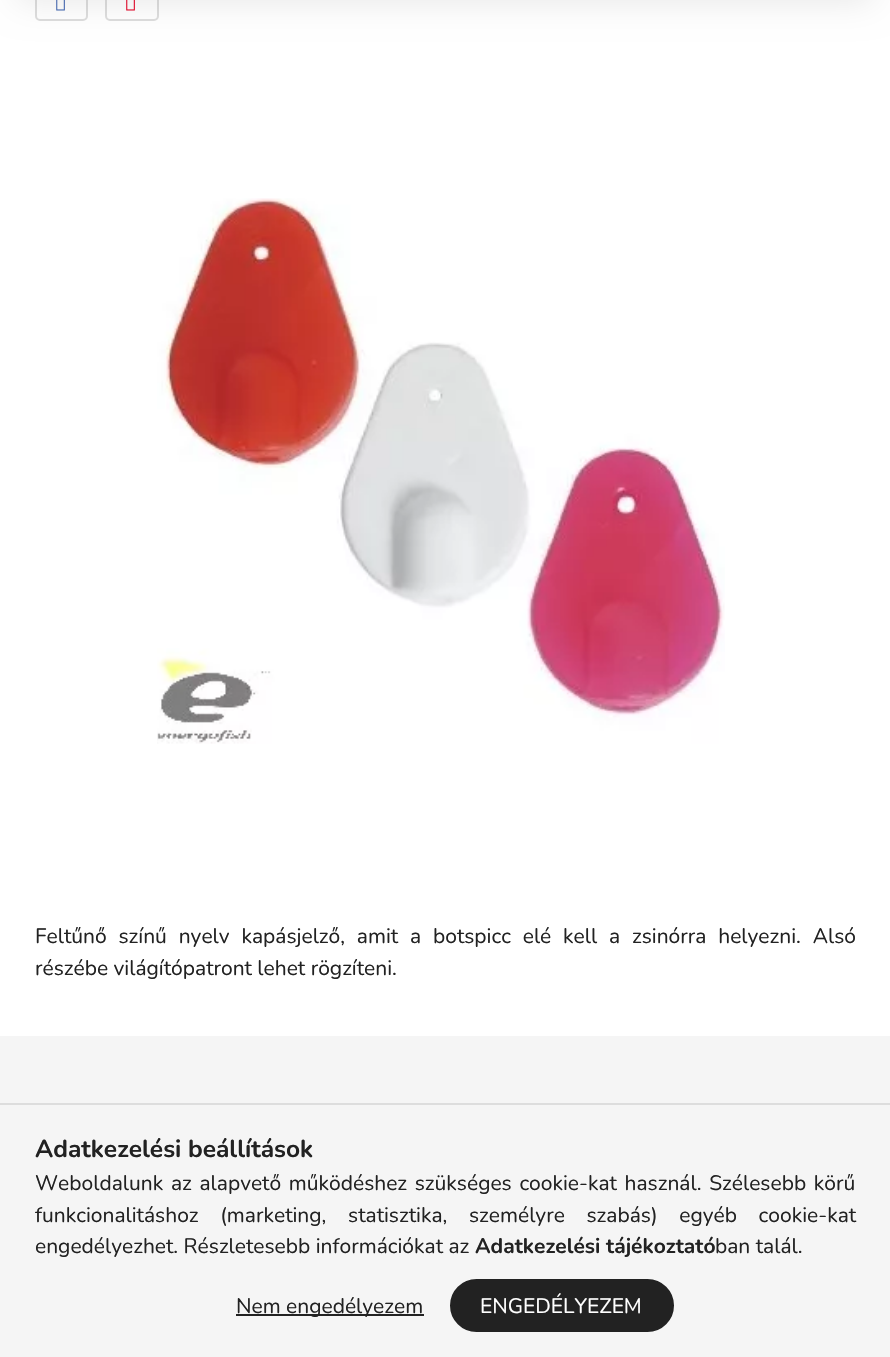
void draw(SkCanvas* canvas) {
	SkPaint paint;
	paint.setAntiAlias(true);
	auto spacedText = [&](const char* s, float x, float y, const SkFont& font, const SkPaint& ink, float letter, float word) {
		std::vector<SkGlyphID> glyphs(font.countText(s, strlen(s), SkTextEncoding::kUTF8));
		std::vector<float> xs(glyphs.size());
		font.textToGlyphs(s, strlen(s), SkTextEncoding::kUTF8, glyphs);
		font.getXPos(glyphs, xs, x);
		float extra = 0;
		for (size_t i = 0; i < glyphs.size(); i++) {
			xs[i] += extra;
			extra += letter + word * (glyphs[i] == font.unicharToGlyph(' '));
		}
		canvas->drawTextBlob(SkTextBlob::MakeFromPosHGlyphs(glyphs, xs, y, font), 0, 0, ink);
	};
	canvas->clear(0xffffffff);
	paint.setStroke(true);
	paint.setStrokeWidth(2);
	paint.setColor(0xffdddddd);
	canvas->drawRoundRect(SkRect::MakeXYWH(36, -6, 51, 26), 4, 4, paint);
	canvas->drawImageRect(SkImages::DeferredFromEncodedData(SkData::MakeFromFileName("img1.png")), SkRect::MakeXYWH(56, 0, 9, 11), SkSamplingOptions());
	canvas->drawRoundRect(SkRect::MakeXYWH(106, -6, 52, 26), 4, 4, paint);
	canvas->drawImageRect(SkImages::DeferredFromEncodedData(SkData::MakeFromFileName("img2.png")), SkRect::MakeXYWH(126, 0, 9, 11), SkSamplingOptions());
	paint.setStroke(false);
	paint.setColor(0x1a000000);
	paint.setMaskFilter(SkMaskFilter::MakeBlur(kNormal_SkBlurStyle, 17.5));
	canvas->drawRect(SkRect::MakeXYWH(18, -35, 855, 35), paint);
	paint.setMaskFilter(nullptr);
	canvas->drawImageRect(SkImages::DeferredFromEncodedData(SkData::MakeFromFileName("img3.png")), SkRect::MakeXYWH(157, 198, 568, 546), SkSamplingOptions());
	SkFont f1(fontMgr->matchFamilyStyle("Nunito", SkFontStyle::Normal()), 21);
	f1.setSubpixel(true);
	paint.setColor(0xff222222);
	spacedText("Feltűnő színű nyelv kapásjelző, amit a botspicc elé kell a zsinórra helyezni. Alsó", 35, 943, f1, paint, 0, 6.4);
	canvas->drawString("részébe világítópatront lehet rögzíteni.", 35, 975, f1, paint);
	paint.setColor(0xfff5f5f5);
	canvas->drawRect(SkRect::MakeXYWH(0, 1036, 890, 67), paint);
	canvas->drawRect(SkRect::MakeXYWH(0, 1105, 890, 252), paint);
	paint.setColor(0xffdddddd);
	canvas->drawRect(SkRect::MakeXYWH(0, 1103, 890, 2), paint);
	SkFont f2(fontMgr->matchFamilyStyle("Nunito", SkFontStyle::Bold()), 24.5);
	f2.setSubpixel(true);
	paint.setColor(0xff222222);
	canvas->drawString("Adatkezelési beállítások", 35, 1157, f2, paint);
	spacedText("Weboldalunk az alapvető működéshez szükséges cookie-kat használ. Szélesebb körű", 35, 1190, f1, paint, 0, 2.25);
	spacedText("funkcionalitáshoz (marketing, statisztika, személyre szabás) egyéb cookie-kat", 35, 1222, f1, paint, 0, 16.25);
	canvas->drawString("engedélyezhet. Részletesebb információkat az", 35, 1253, f1, paint);
	SkFont f3(fontMgr->matchFamilyStyle("Nunito", SkFontStyle::Bold()), 21);
	f3.setSubpixel(true);
	canvas->drawString("Adatkezelési tájékoztató", 475, 1253, f3, paint);
	canvas->drawString("ban talál.", 715, 1253, f1, paint);
	canvas->drawRect(SkRect::MakeXYWH(236, 1314, 188, 2), paint);
	canvas->drawString("Nem engedélyezem", 236, 1313, f1, paint);
	canvas->drawRoundRect(SkRect::MakeXYWH(451, 1280, 222, 51), 25.5, 25.5, paint);
	paint.setStroke(true);
	canvas->drawRoundRect(SkRect::MakeXYWH(451, 1280, 222, 51), 25.5, 25.5, paint);
	paint.setStroke(false);
	paint.setColor(0xffffffff);
	canvas->drawString("ENGEDÉLYEZEM", 480, 1313, f1, paint);
}
